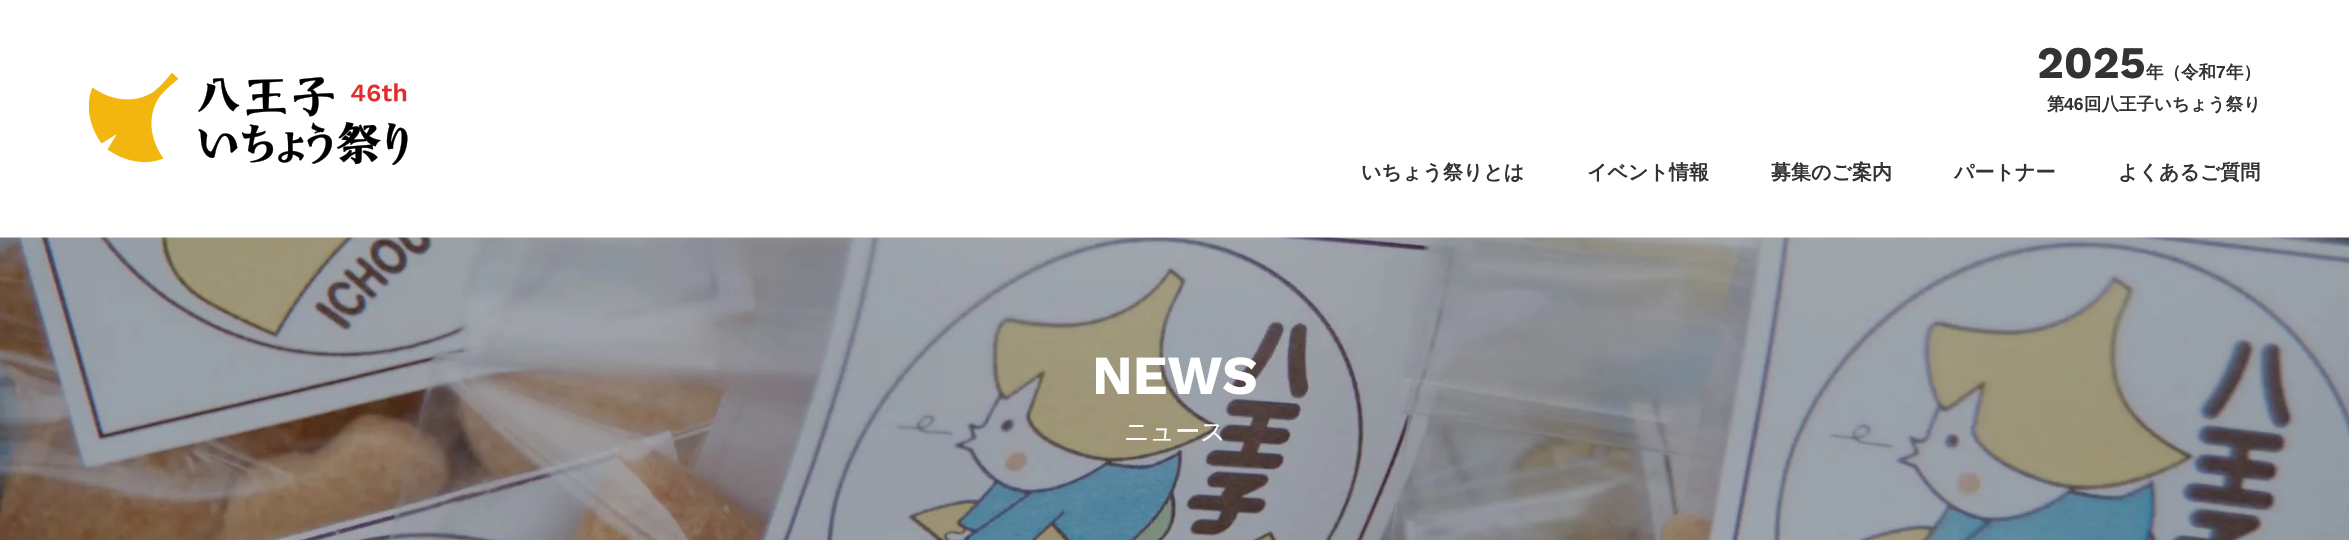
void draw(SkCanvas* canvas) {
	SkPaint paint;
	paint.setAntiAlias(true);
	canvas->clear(0xffffffff);
	canvas->drawImageRect(SkImages::DeferredFromEncodedData(SkData::MakeFromFileName("img1.png")), SkRect::MakeXYWH(89, 73, 319, 92), SkSamplingOptions());
	SkFont f1(fontMgr->matchFamilyStyle("Work Sans", SkFontStyle::Bold()), 45);
	f1.setSubpixel(true);
	paint.setColor(0xff333333);
	canvas->drawString("2025", 2037, 78, f1, paint);
	SkFont f2(fontMgr->matchFamilyStyle("WenQuanYi Zen Hei", SkFontStyle::Bold()), 17.5);
	f2.setSubpixel(true);
	canvas->drawString("年（令和", 2146, 78, f2, paint);
	SkFont f3(fontMgr->matchFamilyStyle("Liberation Sans", SkFontStyle::Bold()), 17.5);
	f3.setSubpixel(true);
	canvas->drawString("7", 2216, 78, f3, paint);
	canvas->drawString("年）", 2226, 78, f2, paint);
	canvas->drawString("第", 2047, 110, f2, paint);
	canvas->drawString("46", 2064, 110, f3, paint);
	canvas->drawString("回八王子いちょう祭り", 2084, 110, f2, paint);
	SkFont f4(fontMgr->matchFamilyStyle("WenQuanYi Zen Hei", SkFontStyle::Bold()), 20);
	f4.setSubpixel(true);
	canvas->drawString("いちょう祭りとは", 1361, 179, f4, paint);
	canvas->drawString("イベント情報", 1587, 179, f4, paint);
	canvas->drawString("募集のご案内", 1771, 179, f4, paint);
	canvas->drawString("パートナー", 1954, 179, f4, paint);
	canvas->drawString("よくあるご質問", 2118, 179, f4, paint);
	canvas->drawImageRect(SkImages::DeferredFromEncodedData(SkData::MakeFromFileName("img2.png")), SkRect::MakeXYWH(0, 237, 2349, 303), SkSamplingOptions());
	SkFont f5(fontMgr->matchFamilyStyle("Work Sans", SkFontStyle::Bold()), 55);
	f5.setSubpixel(true);
	paint.setColor(0xffffffff);
	canvas->drawString("NEWS", 1092, 394, f5, paint);
	SkFont f6(fontMgr->matchFamilyStyle("WenQuanYi Zen Hei", SkFontStyle(500, SkFontStyle::kNormal_Width, SkFontStyle::kUpright_Slant)), 25);
	f6.setSubpixel(true);
	canvas->drawString("ニュース", 1124, 440, f6, paint);
}
